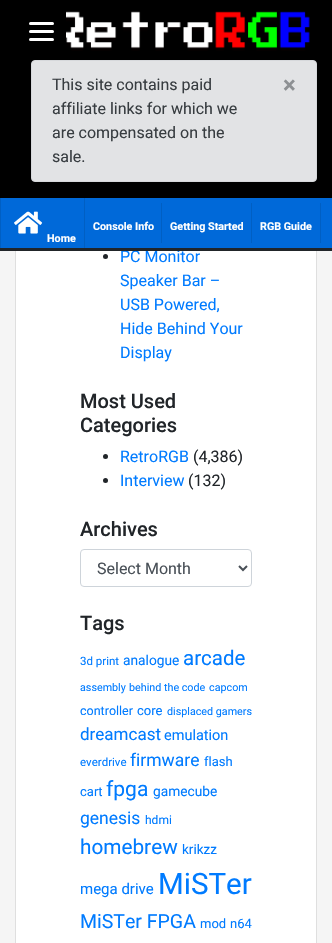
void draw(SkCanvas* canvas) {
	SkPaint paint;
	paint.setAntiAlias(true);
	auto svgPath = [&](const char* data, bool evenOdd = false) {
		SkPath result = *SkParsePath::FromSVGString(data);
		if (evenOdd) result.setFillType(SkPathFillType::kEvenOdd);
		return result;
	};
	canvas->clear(0xfff5f5f5);
	paint.setColor(0xffffffff);
	canvas->drawRect(SkRect::MakeXYWH(16, 251, 300, 692), paint);
	paint.setStroke(true);
	paint.setStrokeWidth(1);
	paint.setColor(0xffdfdfdf);
	canvas->drawRect(SkRect::MakeXYWH(15.5, -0.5, 301, 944), paint);
	paint.setStroke(false);
	paint.setColor(0xff000000);
	canvas->drawRect(SkRect::MakeXYWH(0, 0, 332, 198), paint);
	paint.setColor(0xffffffff);
	canvas->drawRoundRect(SkRect::MakeXYWH(29, 30, 25, 3), 1.5, 1.5, paint);
	canvas->drawRoundRect(SkRect::MakeXYWH(29, 22, 25, 3), 1.5, 1.5, paint);
	canvas->drawRoundRect(SkRect::MakeXYWH(29, 38, 25, 3), 1.5, 1.5, paint);
	SkFont f1(fontMgr->matchFamilyStyle("Roboto", SkFontStyle::Normal()), 16);
	f1.setSubpixel(true);
	paint.setColor(0xff007bff);
	canvas->drawString("PC Monitor", 120, 262, f1, paint);
	paint.setColor(0xff212529);
	canvas->drawRect(SkRect::MakeXYWH(0, 248, 332, 3), paint);
	canvas->drawImageRect(SkImages::DeferredFromEncodedData(SkData::MakeFromFileName("img1.png")), SkRect::MakeXYWH(66, 11, 244, 40), SkSamplingOptions());
	paint.setColor(0xffe2e3e5);
	canvas->drawRoundRect(SkRect::MakeXYWH(31.5, 60.5, 285, 121), 3.5, 3.5, paint);
	paint.setStroke(true);
	paint.setColor(0xffd6d8db);
	canvas->drawRoundRect(SkRect::MakeXYWH(31.5, 60.5, 285, 121), 3.5, 3.5, paint);
	paint.setStroke(false);
	paint.setColor(0xff383d41);
	canvas->drawString("This site contains paid", 52, 90, f1, paint);
	SkFont f2(fontMgr->matchFamilyStyle("Roboto", SkFontStyle::Bold()), 24);
	f2.setSubpixel(true);
	paint.setColor(0xff8d9093);
	canvas->drawString("×", 283, 93, f2, paint);
	paint.setColor(0xff383d41);
	canvas->drawString("affiliate links for which we", 52, 114, f1, paint);
	canvas->drawString("are compensated on the", 52, 138, f1, paint);
	canvas->drawString("sale.", 52, 162, f1, paint);
	paint.setColor(0xff0069d9);
	canvas->drawRect(SkRect::MakeXYWH(1, 198, 331, 50), paint);
	paint.setColor(0xff005fc3);
	canvas->drawRect(SkRect::MakeXYWH(0, 198, 1, 50), paint);
	canvas->drawRect(SkRect::MakeXYWH(161, 203, 1, 40), paint);
	SkFont f3(fontMgr->matchFamilyStyle("Roboto", SkFontStyle::Bold()), 10.75);
	f3.setSubpixel(true);
	paint.setColor(0xffffffff);
	canvas->drawString("Console Info", 93, 230, f3, paint);
	paint.setColor(0xff005fc3);
	canvas->drawRect(SkRect::MakeXYWH(251, 203, 1, 40), paint);
	paint.setColor(0xffffffff);
	canvas->drawString("Getting Started", 170, 230, f3, paint);
	paint.setColor(0xff005fc3);
	canvas->drawRect(SkRect::MakeXYWH(320, 203, 1, 40), paint);
	paint.setColor(0xffffffff);
	canvas->drawString("RGB Guide", 260, 230, f3, paint);
	paint.setColor(0xff005fc3);
	canvas->drawRect(SkRect::MakeXYWH(84, 198, 1, 50), paint);
	canvas->drawImageRect(SkImages::DeferredFromEncodedData(SkData::MakeFromFileName("img2.png")), SkRect::MakeXYWH(14, 211, 29, 23), SkSamplingOptions());
	paint.setColor(0xffffffff);
	canvas->drawString("Home", 47, 242, f3, paint);
	paint.setColor(0xff212529);
	canvas->drawCircle(105.5, 256.5, 2.5, paint);
	paint.setColor(0xff007bff);
	canvas->drawString("Speaker Bar –", 120, 286, f1, paint);
	canvas->drawString("USB Powered,", 120, 310, f1, paint);
	canvas->drawString("Hide Behind Your", 120, 334, f1, paint);
	canvas->drawString("Display", 120, 358, f1, paint);
	SkFont f4(fontMgr->matchFamilyStyle("Roboto", SkFontStyle(500, SkFontStyle::kNormal_Width, SkFontStyle::kUpright_Slant)), 20);
	f4.setSubpixel(true);
	paint.setColor(0xff212529);
	canvas->drawString("Most Used", 80, 408, f4, paint);
	canvas->drawString("Categories", 80, 432, f4, paint);
	canvas->drawCircle(105.5, 456.5, 2.5, paint);
	paint.setColor(0xff007bff);
	canvas->drawString("RetroRGB", 120, 462, f1, paint);
	paint.setColor(0xff212529);
	canvas->drawString("(4,386)", 193, 462, f1, paint);
	canvas->drawCircle(105.5, 480.5, 2.5, paint);
	paint.setColor(0xff007bff);
	canvas->drawString("Interview", 120, 486, f1, paint);
	paint.setColor(0xff212529);
	canvas->drawString("(132)", 188, 486, f1, paint);
	canvas->drawString("Archives", 80, 536, f4, paint);
	paint.setStroke(true);
	paint.setColor(0xffced4da);
	canvas->drawRoundRect(SkRect::MakeXYWH(80.5, 549.5, 171, 37), 3.5, 3.5, paint);
	paint.setStrokeWidth(2);
	paint.setColor(0xff495057);
	canvas->drawPath(svgPath("M239 566L243 570L247 566"), paint);
	paint.setStroke(false);
	canvas->drawString("Select Month", 97, 574, f1, paint);
	paint.setColor(0xff212529);
	canvas->drawString("Tags", 80, 630, f4, paint);
	SkFont f5(fontMgr->matchFamilyStyle("Roboto", SkFontStyle::Normal()), 11.5);
	f5.setSubpixel(true);
	paint.setColor(0xff007bff);
	canvas->drawString("3d print", 80, 665, f5, paint);
	SkFont f6(fontMgr->matchFamilyStyle("Roboto", SkFontStyle::Normal()), 13.75);
	f6.setSubpixel(true);
	canvas->drawString("analogue", 123, 665, f6, paint);
	SkFont f7(fontMgr->matchFamilyStyle("Roboto", SkFontStyle::Normal()), 20.5);
	f7.setSubpixel(true);
	canvas->drawString("arcade", 183, 665, f7, paint);
	SkFont f8(fontMgr->matchFamilyStyle("Roboto", SkFontStyle::Normal()), 10.75);
	f8.setSubpixel(true);
	canvas->drawString("assembly", 80, 691, f8, paint);
	canvas->drawString("behind the code", 129, 691, f8, paint);
	canvas->drawString("capcom", 209, 691, f8, paint);
	SkFont f9(fontMgr->matchFamilyStyle("Roboto", SkFontStyle::Normal()), 12.5);
	f9.setSubpixel(true);
	canvas->drawString("controller", 80, 715, f9, paint);
	SkFont f10(fontMgr->matchFamilyStyle("Roboto", SkFontStyle::Normal()), 13);
	f10.setSubpixel(true);
	canvas->drawString("core", 137, 715, f10, paint);
	canvas->drawString("displaced gamers", 167, 715, f8, paint);
	SkFont f11(fontMgr->matchFamilyStyle("Roboto", SkFontStyle::Normal()), 17);
	f11.setSubpixel(true);
	canvas->drawString("dreamcast", 80, 740, f11, paint);
	SkFont f12(fontMgr->matchFamilyStyle("Roboto", SkFontStyle::Normal()), 14.5);
	f12.setSubpixel(true);
	canvas->drawString("emulation", 164, 740, f12, paint);
	canvas->drawString("everdrive", 80, 766, f5, paint);
	SkFont f13(fontMgr->matchFamilyStyle("Roboto", SkFontStyle::Normal()), 17.5);
	f13.setSubpixel(true);
	canvas->drawString("firmware", 130, 766, f13, paint);
	canvas->drawString("flash", 204, 766, f10, paint);
	canvas->drawString("cart", 80, 796, f10, paint);
	SkFont f14(fontMgr->matchFamilyStyle("Roboto", SkFontStyle::Normal()), 21);
	f14.setSubpixel(true);
	canvas->drawString("fpga", 106, 796, f14, paint);
	canvas->drawString("gamecube", 153, 796, f6, paint);
	canvas->drawString("genesis", 80, 824, f13, paint);
	SkFont f15(fontMgr->matchFamilyStyle("Roboto", SkFontStyle::Normal()), 12);
	f15.setSubpixel(true);
	canvas->drawString("hdmi", 145, 824, f15, paint);
	SkFont f16(fontMgr->matchFamilyStyle("Roboto", SkFontStyle::Normal()), 20.75);
	f16.setSubpixel(true);
	canvas->drawString("homebrew", 80, 854, f16, paint);
	SkFont f17(fontMgr->matchFamilyStyle("Roboto", SkFontStyle::Normal()), 13.5);
	f17.setSubpixel(true);
	canvas->drawString("krikzz", 182, 854, f17, paint);
	SkFont f18(fontMgr->matchFamilyStyle("Roboto", SkFontStyle::Normal()), 15);
	f18.setSubpixel(true);
	canvas->drawString("mega drive", 80, 894, f18, paint);
	SkFont f19(fontMgr->matchFamilyStyle("Roboto", SkFontStyle::Normal()), 29.5);
	f19.setSubpixel(true);
	canvas->drawString("MiSTer", 158, 894, f19, paint);
	SkFont f20(fontMgr->matchFamilyStyle("Roboto", SkFontStyle::Normal()), 19.5);
	f20.setSubpixel(true);
	canvas->drawString("MiSTer FPGA", 80, 928, f20, paint);
	canvas->drawString("mod", 200, 928, f10, paint);
	canvas->drawString("n64", 230, 928, f10, paint);
}
